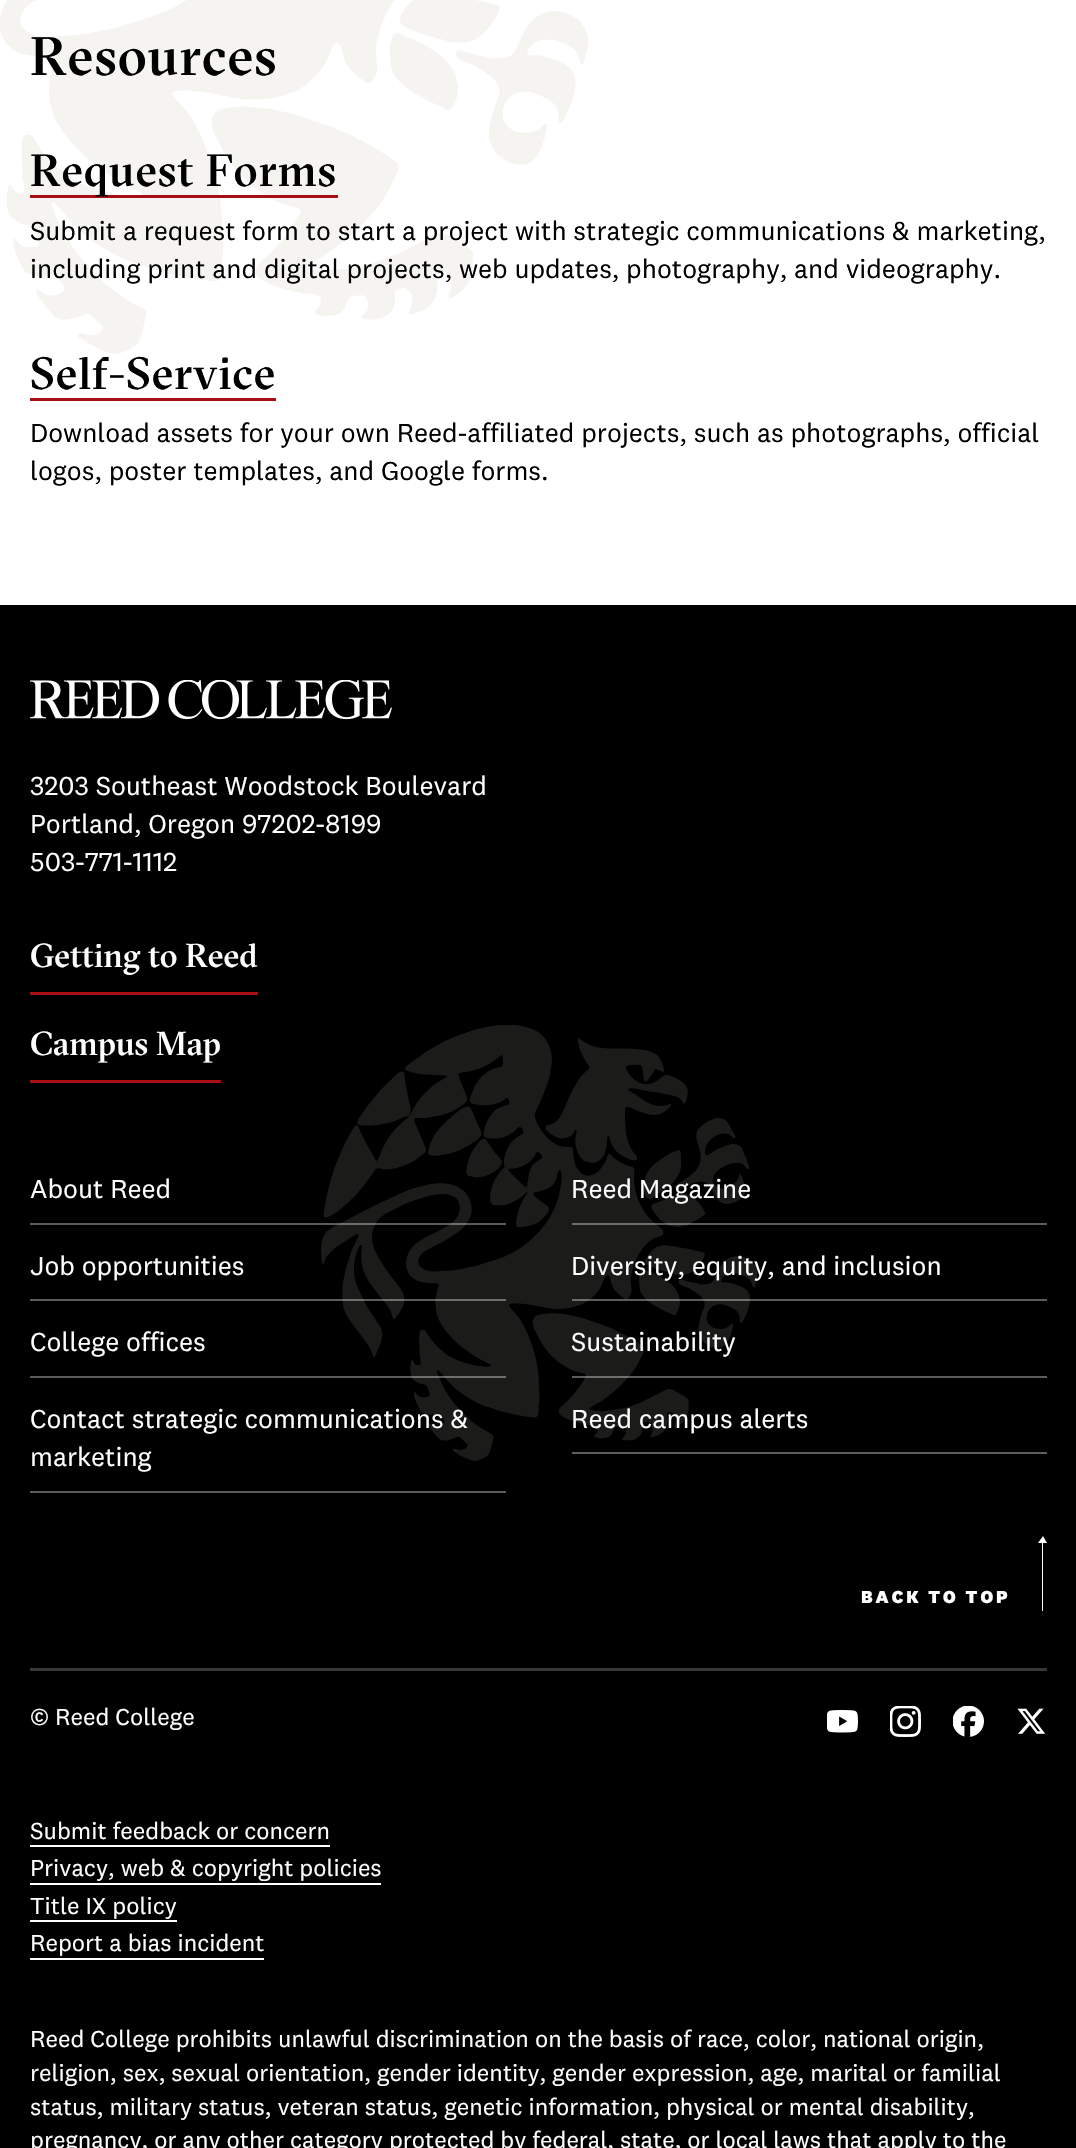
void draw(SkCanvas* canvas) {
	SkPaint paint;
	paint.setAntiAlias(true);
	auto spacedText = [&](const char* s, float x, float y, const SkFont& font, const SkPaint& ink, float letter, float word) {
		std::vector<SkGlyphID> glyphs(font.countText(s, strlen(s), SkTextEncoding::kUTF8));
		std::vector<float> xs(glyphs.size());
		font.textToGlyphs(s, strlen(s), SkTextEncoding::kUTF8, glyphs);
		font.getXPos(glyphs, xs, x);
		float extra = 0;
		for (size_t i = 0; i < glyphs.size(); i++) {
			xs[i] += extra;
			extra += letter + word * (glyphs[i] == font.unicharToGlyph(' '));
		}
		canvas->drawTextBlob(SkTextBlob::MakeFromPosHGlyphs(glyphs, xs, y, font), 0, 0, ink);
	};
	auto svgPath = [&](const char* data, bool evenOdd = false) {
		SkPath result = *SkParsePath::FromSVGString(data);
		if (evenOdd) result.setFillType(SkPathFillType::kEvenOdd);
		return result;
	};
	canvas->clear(0xffffffff);
	canvas->drawImageRect(SkImages::DeferredFromEncodedData(SkData::MakeFromFileName("img1.png")), SkRect::MakeXYWH(0, 0, 588, 354), SkSamplingOptions());
	SkFont f1(fontMgr->matchFamilyStyle("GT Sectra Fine", SkFontStyle(500, SkFontStyle::kNormal_Width, SkFontStyle::kUpright_Slant)), 54);
	f1.setSubpixel(true);
	paint.setColor(0xff000000);
	spacedText("Resources", 30, 75, f1, paint, 1, 0);
	paint.setColor(0xffa70e16);
	canvas->drawRect(SkRect::MakeXYWH(30, 195, 308, 3), paint);
	SkFont f2(fontMgr->matchFamilyStyle("GT Sectra Fine", SkFontStyle(500, SkFontStyle::kNormal_Width, SkFontStyle::kUpright_Slant)), 45);
	f2.setSubpixel(true);
	paint.setColor(0xff000000);
	spacedText("Request Forms", 30, 186, f2, paint, 0.9, 0);
	SkFont f3(fontMgr->matchFamilyStyle("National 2", SkFontStyle::Normal()), 27);
	f3.setSubpixel(true);
	canvas->drawString("Submit a request form to start a project with strategic communications & marketing,", 30, 240, f3, paint);
	canvas->drawString("including print and digital projects, web updates, photography, and videography.", 30, 278, f3, paint);
	spacedText("Self-Service", 30, 389, f2, paint, 0.9, 0);
	paint.setColor(0xffa70e16);
	canvas->drawRect(SkRect::MakeXYWH(30, 398, 246, 3), paint);
	paint.setColor(0xff000000);
	canvas->drawString("Download assets for your own Reed-affiliated projects, such as photographs, official", 30, 442, f3, paint);
	canvas->drawString("logos, poster templates, and Google forms.", 30, 480, f3, paint);
	canvas->drawRect(SkRect::MakeXYWH(0, 605, 1076, 1543), paint);
	canvas->drawImageRect(SkImages::DeferredFromEncodedData(SkData::MakeFromFileName("img2.png")), SkRect::MakeXYWH(30, 680, 362, 40), SkSamplingOptions());
	paint.setColor(0xffffffff);
	canvas->drawString("3203 Southeast Woodstock Boulevard", 30, 795, f3, paint);
	canvas->drawString("Portland, Oregon 97202-8199", 30, 833, f3, paint);
	canvas->drawString("503-771-1112", 30, 871, f3, paint);
	paint.setColor(0xffa70e16);
	canvas->drawRect(SkRect::MakeXYWH(30, 992, 228, 3), paint);
	SkFont f4(fontMgr->matchFamilyStyle("GT Sectra Fine", SkFontStyle(500, SkFontStyle::kNormal_Width, SkFontStyle::kUpright_Slant)), 33);
	f4.setSubpixel(true);
	paint.setColor(0xffffffff);
	canvas->drawString("Getting to Reed", 30, 967, f4, paint);
	paint.setColor(0xffa70e16);
	canvas->drawRect(SkRect::MakeXYWH(30, 1080, 191, 3), paint);
	paint.setColor(0xffffffff);
	canvas->drawString("Campus Map", 30, 1055, f4, paint);
	canvas->drawImageRect(SkImages::DeferredFromEncodedData(SkData::MakeFromFileName("img3.png")), SkRect::MakeXYWH(321, 1025, 437, 436), SkSamplingOptions());
	paint.setColor(0x5cffffff);
	canvas->drawRect(SkRect::MakeXYWH(30, 1223, 476, 2), paint);
	paint.setColor(0xffffffff);
	canvas->drawString("About Reed", 30, 1198, f3, paint);
	paint.setColor(0x5cffffff);
	canvas->drawRect(SkRect::MakeXYWH(572, 1223, 475, 2), paint);
	paint.setColor(0xffffffff);
	canvas->drawString("Reed Magazine", 571, 1198, f3, paint);
	paint.setColor(0x5cffffff);
	canvas->drawRect(SkRect::MakeXYWH(30, 1299, 476, 2), paint);
	paint.setColor(0xffffffff);
	canvas->drawString("Job opportunities", 30, 1275, f3, paint);
	paint.setColor(0x5cffffff);
	canvas->drawRect(SkRect::MakeXYWH(572, 1299, 475, 2), paint);
	paint.setColor(0xffffffff);
	canvas->drawString("Diversity, equity, and inclusion", 571, 1275, f3, paint);
	paint.setColor(0x5cffffff);
	canvas->drawRect(SkRect::MakeXYWH(30, 1376, 476, 2), paint);
	paint.setColor(0xffffffff);
	canvas->drawString("College offices", 30, 1351, f3, paint);
	paint.setColor(0x5cffffff);
	canvas->drawRect(SkRect::MakeXYWH(572, 1376, 475, 2), paint);
	paint.setColor(0xffffffff);
	canvas->drawString("Sustainability", 571, 1351, f3, paint);
	paint.setColor(0xff5c5c5c);
	canvas->drawRect(SkRect::MakeXYWH(30, 1491, 476, 2), paint);
	paint.setColor(0xffffffff);
	canvas->drawString("Contact strategic communications &", 30, 1428, f3, paint);
	canvas->drawString("marketing", 30, 1466, f3, paint);
	paint.setColor(0xff5c5c5c);
	canvas->drawRect(SkRect::MakeXYWH(572, 1452, 475, 2), paint);
	paint.setColor(0xffffffff);
	canvas->drawString("Reed campus alerts", 571, 1428, f3, paint);
	SkFont f5(fontMgr->matchFamilyStyle("National 2", SkFontStyle(800, SkFontStyle::kNormal_Width, SkFontStyle::kUpright_Slant)), 18);
	f5.setSubpixel(true);
	spacedText("BACK TO TOP", 861, 1603, f5, paint, 3, 0);
	canvas->drawPath(svgPath("M1043 1536L1038 1543H1042V1611H1043V1543H1047Z"), paint);
	paint.setColor(0xff383838);
	canvas->drawRect(SkRect::MakeXYWH(30, 1668, 1017, 3), paint);
	SkFont f6(fontMgr->matchFamilyStyle("National 2", SkFontStyle::Normal()), 24);
	f6.setSubpixel(true);
	paint.setColor(0xffffffff);
	canvas->drawString("© Reed College", 30, 1725, f6, paint);
	canvas->drawImageRect(SkImages::DeferredFromEncodedData(SkData::MakeFromFileName("img4.png")), SkRect::MakeXYWH(827, 1710, 31, 23), SkSamplingOptions());
	canvas->drawImageRect(SkImages::DeferredFromEncodedData(SkData::MakeFromFileName("img5.png")), SkRect::MakeXYWH(890, 1706, 31, 31), SkSamplingOptions());
	canvas->drawImageRect(SkImages::DeferredFromEncodedData(SkData::MakeFromFileName("img6.png")), SkRect::MakeXYWH(953, 1706, 31, 31), SkSamplingOptions());
	canvas->drawImageRect(SkImages::DeferredFromEncodedData(SkData::MakeFromFileName("img7.png")), SkRect::MakeXYWH(1017, 1708, 29, 26), SkSamplingOptions());
	canvas->drawString("Submit feedback or concern", 30, 1839, f6, paint);
	canvas->drawRect(SkRect::MakeXYWH(30, 1845, 300, 2), paint);
	canvas->drawString("Privacy, web & copyright policies", 30, 1876, f6, paint);
	canvas->drawRect(SkRect::MakeXYWH(30, 1883, 351, 2), paint);
	canvas->drawString("Title IX policy", 30, 1914, f6, paint);
	canvas->drawRect(SkRect::MakeXYWH(30, 1920, 147, 2), paint);
	canvas->drawString("Report a bias incident", 30, 1951, f6, paint);
	canvas->drawRect(SkRect::MakeXYWH(30, 1958, 234, 2), paint);
	canvas->drawString("Reed College prohibits unlawful discrimination on the basis of race, color, national origin,", 30, 2047, f6, paint);
	canvas->drawString("religion, sex, sexual orientation, gender identity, gender expression, age, marital or familial", 30, 2081, f6, paint);
	canvas->drawString("status, military status, veteran status, genetic information, physical or mental disability,", 30, 2115, f6, paint);
	canvas->drawString("pregnancy, or any other category protected by federal, state, or local laws that apply to the", 30, 2148, f6, paint);
}
